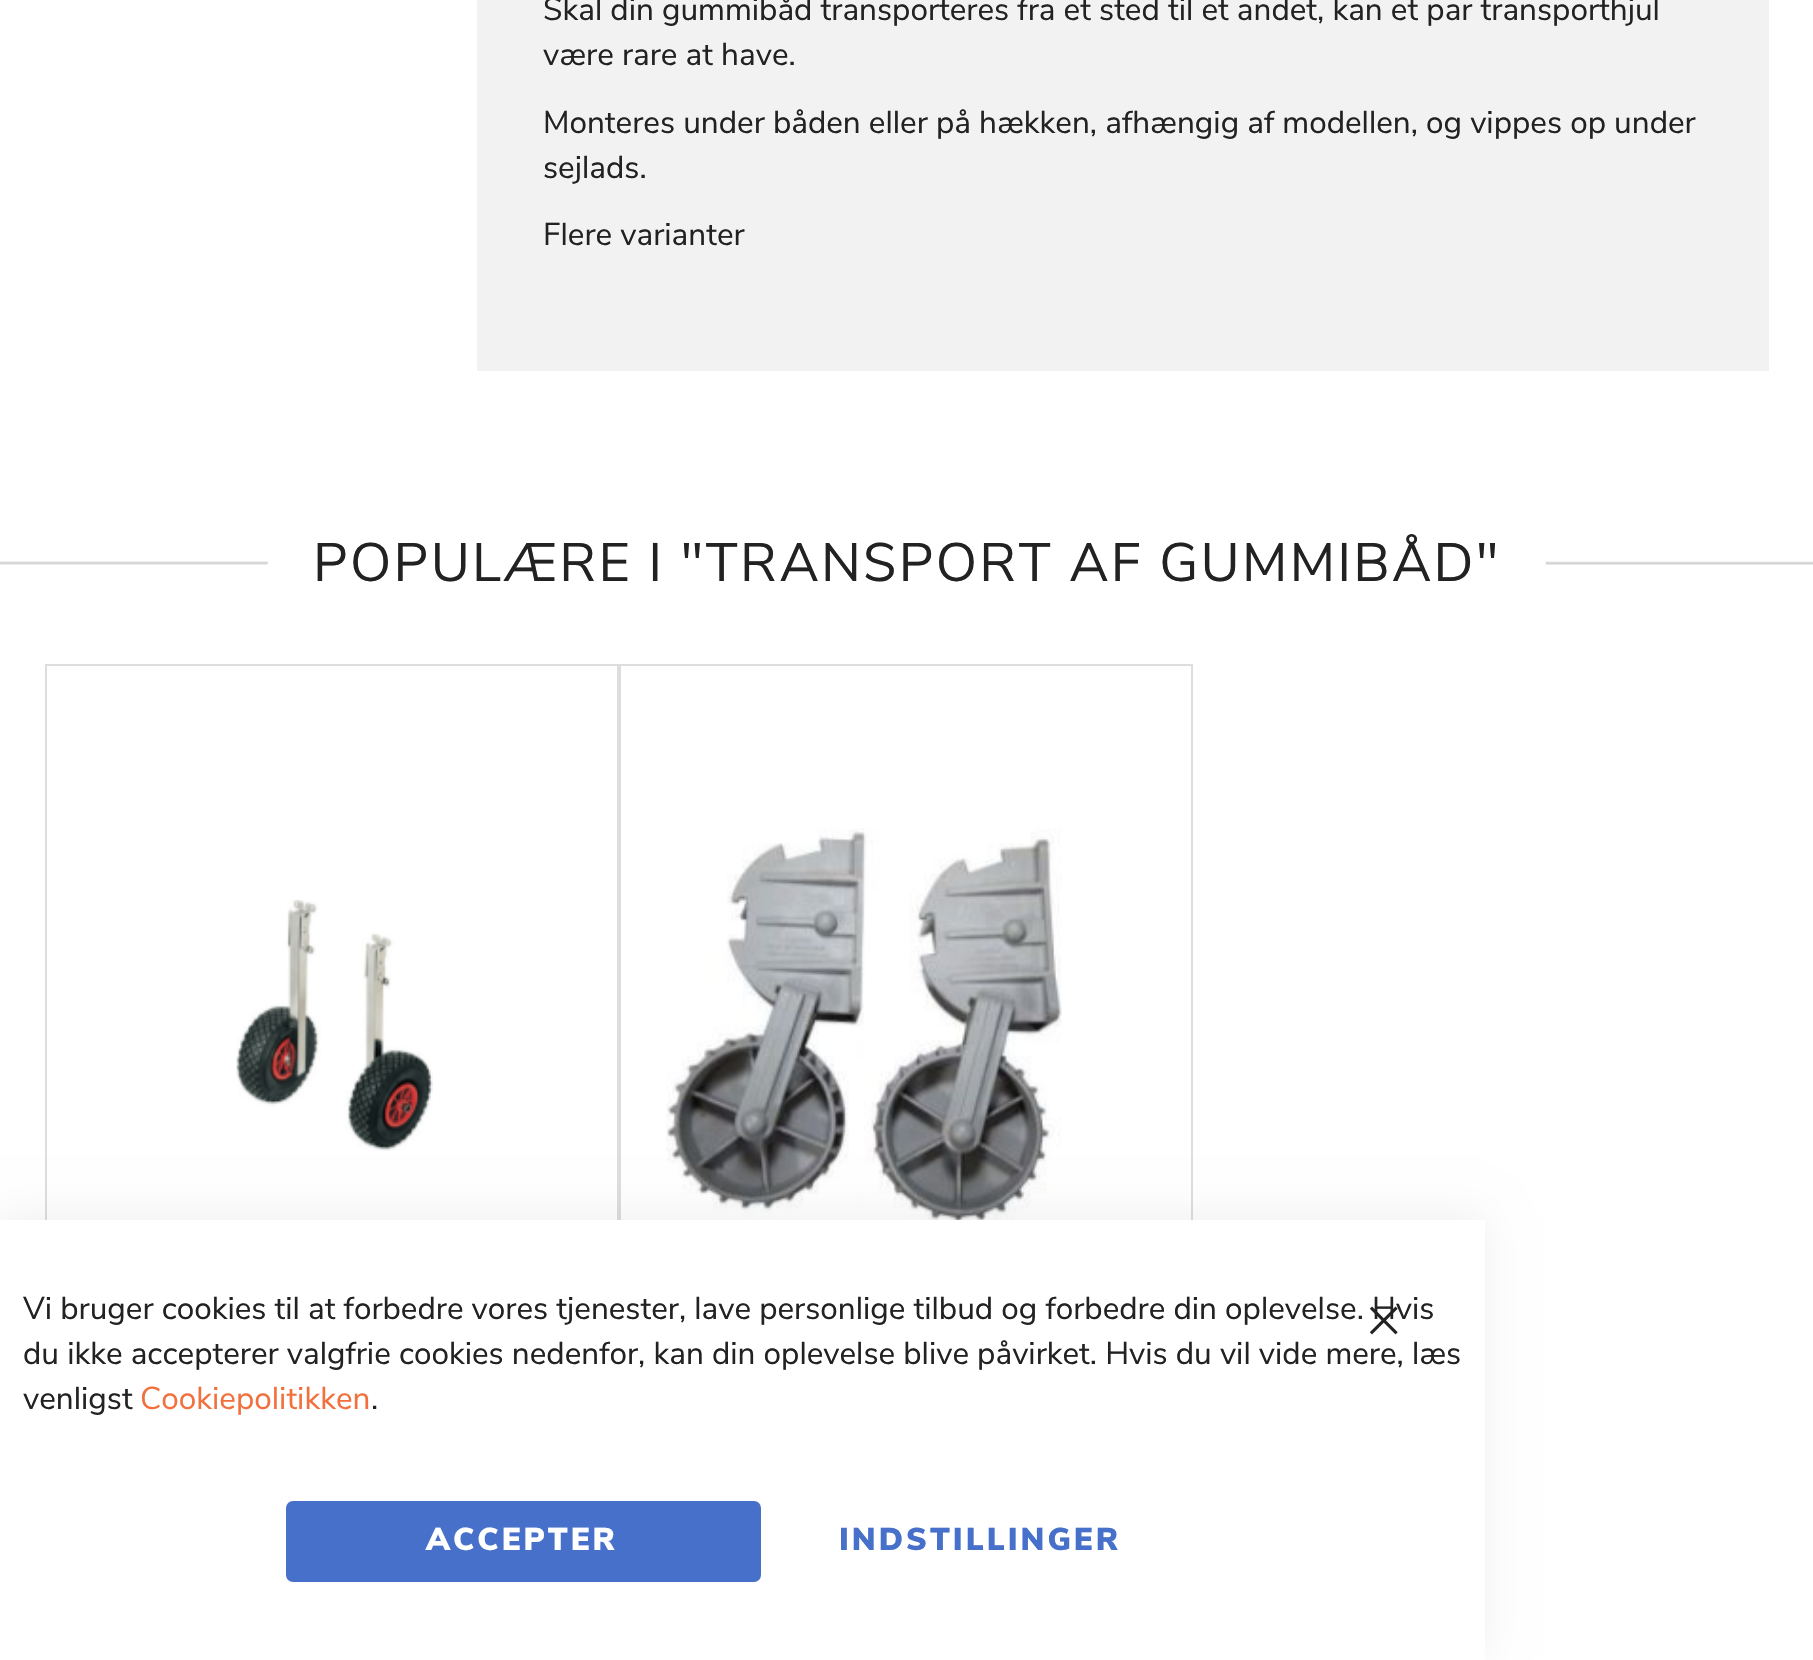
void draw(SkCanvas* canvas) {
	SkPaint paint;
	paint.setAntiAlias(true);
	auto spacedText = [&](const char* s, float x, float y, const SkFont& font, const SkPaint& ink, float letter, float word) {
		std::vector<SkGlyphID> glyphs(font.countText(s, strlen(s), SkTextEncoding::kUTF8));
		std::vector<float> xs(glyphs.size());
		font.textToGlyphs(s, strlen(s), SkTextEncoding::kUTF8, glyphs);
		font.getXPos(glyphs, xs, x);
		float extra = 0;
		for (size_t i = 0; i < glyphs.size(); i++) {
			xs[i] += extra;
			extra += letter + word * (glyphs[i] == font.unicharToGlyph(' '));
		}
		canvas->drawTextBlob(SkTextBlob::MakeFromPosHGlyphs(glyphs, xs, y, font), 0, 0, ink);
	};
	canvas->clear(0xffffffff);
	paint.setColor(0xfff2f2f2);
	canvas->drawRect(SkRect::MakeXYWH(477, 0, 1292, 371), paint);
	SkFont f1(fontMgr->matchFamilyStyle("Nunito Sans", SkFontStyle::Normal()), 31.5);
	f1.setSubpixel(true);
	paint.setColor(0xff222222);
	canvas->drawString("Skal din gummibåd transporteres fra et sted til et andet, kan et par transporthjul", 543, 20, f1, paint);
	canvas->drawString("være rare at have.", 543, 65, f1, paint);
	canvas->drawString("Monteres under båden eller på hækken, afhængig af modellen, og vippes op under", 543, 133, f1, paint);
	canvas->drawString("sejlads.", 543, 178, f1, paint);
	canvas->drawString("Flere varianter", 543, 245, f1, paint);
	canvas->drawImageRect(SkImages::DeferredFromEncodedData(SkData::MakeFromFileName("img1.png")), SkRect::MakeXYWH(0, 561, 268, 4), SkSamplingOptions());
	SkFont f2(fontMgr->matchFamilyStyle("Nunito Sans", SkFontStyle::Normal()), 54);
	f2.setSubpixel(true);
	spacedText("POPULÆRE I \"TRANSPORT AF GUMMIBÅD\"", 313, 581, f2, paint, 2.25, 0);
	canvas->drawImageRect(SkImages::DeferredFromEncodedData(SkData::MakeFromFileName("img2.png")), SkRect::MakeXYWH(1545, 561, 268, 4), SkSamplingOptions());
	paint.setStroke(true);
	paint.setStrokeWidth(2);
	paint.setColor(0xffdddddd);
	canvas->drawRect(SkRect::MakeXYWH(46, 665, 572, 727), paint);
	canvas->drawImageRect(SkImages::DeferredFromEncodedData(SkData::MakeFromFileName("img3.png")), SkRect::MakeXYWH(236, 899, 197, 252), SkSamplingOptions());
	canvas->drawRect(SkRect::MakeXYWH(620, 665, 572, 727), paint);
	canvas->drawImageRect(SkImages::DeferredFromEncodedData(SkData::MakeFromFileName("img4.png")), SkRect::MakeXYWH(666, 828, 396, 392), SkSamplingOptions());
	paint.setStroke(false);
	paint.setColor(0x0f000000);
	paint.setMaskFilter(SkMaskFilter::MakeBlur(kNormal_SkBlurStyle, 20));
	canvas->drawRect(SkRect::MakeXYWH(0, 1215, 1485, 441), paint);
	paint.setMaskFilter(nullptr);
	paint.setColor(0xffffffff);
	canvas->drawRect(SkRect::MakeXYWH(0, 1220, 1485, 440), paint);
	paint.setColor(0xff222222);
	canvas->drawString("Vi bruger cookies til at forbedre vores tjenester, lave personlige tilbud og forbedre din oplevelse. Hvis", 23, 1319, f1, paint);
	canvas->drawString("du ikke accepterer valgfrie cookies nedenfor, kan din oplevelse blive påvirket. Hvis du vil vide mere, læs", 23, 1364, f1, paint);
	canvas->drawString("venligst", 23, 1409, f1, paint);
	paint.setColor(0xfff2703e);
	canvas->drawString("Cookiepolitikken", 140, 1409, f1, paint);
	paint.setColor(0xff222222);
	canvas->drawString(".", 371, 1409, f1, paint);
	paint.setColor(0xff4670c9);
	canvas->drawRoundRect(SkRect::MakeXYWH(286, 1501, 475, 81), 7, 7, paint);
	SkFont f3(fontMgr->matchFamilyStyle("Nunito Sans", SkFontStyle(900, SkFontStyle::kNormal_Width, SkFontStyle::kUpright_Slant)), 31.5);
	f3.setSubpixel(true);
	paint.setColor(0xffffffff);
	spacedText("ACCEPTER", 426, 1550, f3, paint, 3, 0);
	paint.setColor(0xff4670c9);
	spacedText("INDSTILLINGER", 839, 1550, f3, paint, 3, 0);
	canvas->drawImageRect(SkImages::DeferredFromEncodedData(SkData::MakeFromFileName("img5.png")), SkRect::MakeXYWH(1369, 1306, 29, 29), SkSamplingOptions());
}
